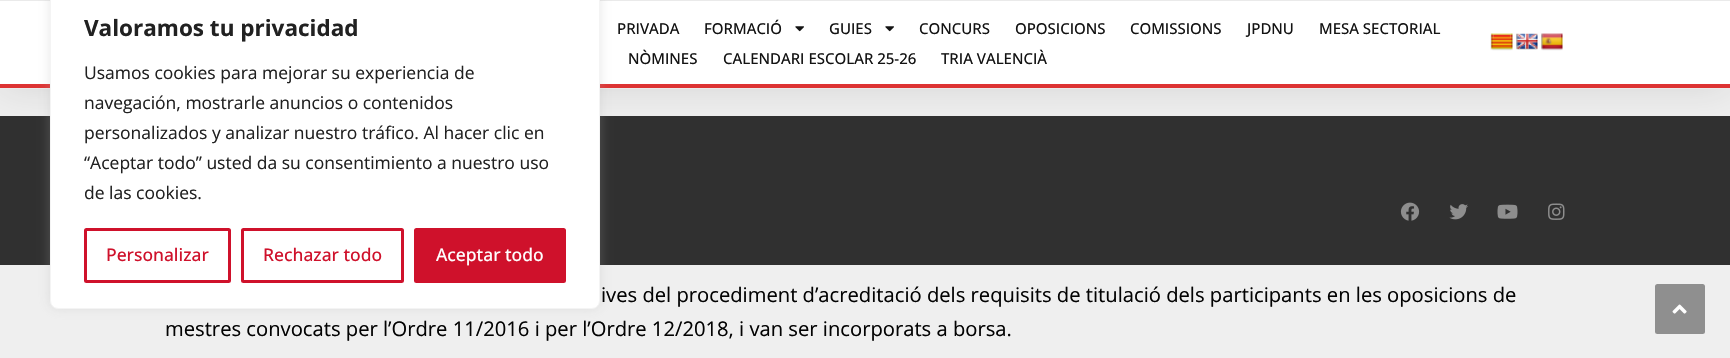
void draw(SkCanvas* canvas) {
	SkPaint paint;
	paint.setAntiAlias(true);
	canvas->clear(0xffefefef);
	paint.setColor(0xff303030);
	canvas->drawRect(SkRect::MakeXYWH(0, 116, 1730, 149), paint);
	paint.setColor(0x1c000000);
	paint.setMaskFilter(SkMaskFilter::MakeBlur(kNormal_SkBlurStyle, 19));
	canvas->drawRect(SkRect::MakeXYWH(0, 0, 1730, 89), paint);
	paint.setMaskFilter(nullptr);
	paint.setColor(0xffffffff);
	canvas->drawRect(SkRect::MakeXYWH(0, 1, 1730, 83), paint);
	paint.setColor(0xffeaeaea);
	canvas->drawRect(SkRect::MakeXYWH(0, 0, 1730, 1), paint);
	canvas->drawRect(SkRect::MakeXYWH(0, 88, 1730, 1), paint);
	paint.setColor(0xffdd3333);
	canvas->drawRect(SkRect::MakeXYWH(0, 84, 1730, 4), paint);
	paint.setColor(0x4dacabab);
	paint.setMaskFilter(SkMaskFilter::MakeBlur(kNormal_SkBlurStyle, 6));
	canvas->drawRoundRect(SkRect::MakeXYWH(50, -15, 550, 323), 8, 8, paint);
	paint.setMaskFilter(nullptr);
	paint.setColor(0xffffffff);
	canvas->drawRoundRect(SkRect::MakeXYWH(50.5, -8.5, 549, 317), 7.5, 7.5, paint);
	paint.setStroke(true);
	paint.setStrokeWidth(1);
	paint.setColor(0xfff4f4f4);
	canvas->drawRoundRect(SkRect::MakeXYWH(50.5, -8.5, 549, 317), 7.5, 7.5, paint);
	SkFont f1(fontMgr->matchFamilyStyle("Open Sans", SkFontStyle::Bold()), 22.5);
	f1.setSubpixel(true);
	paint.setStroke(false);
	paint.setColor(0xff212121);
	canvas->drawString("Valoramos tu privacidad", 84, 36, f1, paint);
	SkFont f2(fontMgr->matchFamilyStyle("Open Sans", SkFontStyle::Normal()), 17.5);
	f2.setSubpixel(true);
	canvas->drawString("Usamos cookies para mejorar su experiencia de", 84, 79, f2, paint);
	canvas->drawString("navegación, mostrarle anuncios o contenidos", 84, 109, f2, paint);
	canvas->drawString("personalizados y analizar nuestro tráfico. Al hacer clic en", 84, 139, f2, paint);
	canvas->drawString("“Aceptar todo” usted da su consentimiento a nuestro uso", 84, 169, f2, paint);
	canvas->drawString("de las cookies.", 84, 199, f2, paint);
	paint.setStroke(true);
	paint.setStrokeWidth(3);
	paint.setColor(0xffcf112b);
	canvas->drawRoundRect(SkRect::MakeXYWH(85.5, 229.5, 144, 52), 1, 1, paint);
	SkFont f3(fontMgr->matchFamilyStyle("Open Sans", SkFontStyle(500, SkFontStyle::kNormal_Width, SkFontStyle::kUpright_Slant)), 17.5);
	f3.setSubpixel(true);
	paint.setStroke(false);
	canvas->drawString("Personalizar", 106, 261, f3, paint);
	paint.setStroke(true);
	canvas->drawRoundRect(SkRect::MakeXYWH(242.5, 229.5, 160, 52), 1, 1, paint);
	paint.setStroke(false);
	canvas->drawString("Rechazar todo", 263, 261, f3, paint);
	canvas->drawRoundRect(SkRect::MakeXYWH(415.5, 229.5, 149, 52), 1, 1, paint);
	paint.setStroke(true);
	canvas->drawRoundRect(SkRect::MakeXYWH(415.5, 229.5, 149, 52), 1, 1, paint);
	paint.setStroke(false);
	paint.setColor(0xffffffff);
	canvas->drawString("Aceptar todo", 436, 261, f3, paint);
	SkFont f4(fontMgr->matchFamilyStyle("Open Sans", SkFontStyle(500, SkFontStyle::kNormal_Width, SkFontStyle::kUpright_Slant)), 15);
	f4.setSubpixel(true);
	paint.setColor(0xff131313);
	canvas->drawString("PRIVADA", 617, 34, f4, paint);
	canvas->drawString("FORMACIÓ", 704, 34, f4, paint);
	canvas->drawImageRect(SkImages::DeferredFromEncodedData(SkData::MakeFromFileName("img1.png")), SkRect::MakeXYWH(795, 26, 9, 6), SkSamplingOptions());
	canvas->drawString("GUIES", 829, 34, f4, paint);
	canvas->drawImageRect(SkImages::DeferredFromEncodedData(SkData::MakeFromFileName("img1.png")), SkRect::MakeXYWH(885, 26, 9, 6), SkSamplingOptions());
	canvas->drawString("CONCURS", 919, 34, f4, paint);
	canvas->drawString("OPOSICIONS", 1015, 34, f4, paint);
	canvas->drawString("COMISSIONS", 1130, 34, f4, paint);
	canvas->drawString("JPDNU", 1247, 34, f4, paint);
	canvas->drawString("MESA SECTORIAL", 1319, 34, f4, paint);
	canvas->drawString("NÒMINES", 628, 64, f4, paint);
	canvas->drawString("CALENDARI ESCOLAR 25-26", 723, 64, f4, paint);
	canvas->drawString("TRIA VALENCIÀ", 941, 64, f4, paint);
	canvas->drawImageRect(SkImages::DeferredFromEncodedData(SkData::MakeFromFileName("img2.png")), SkRect::MakeXYWH(1490, 33, 23, 18), SkSamplingOptions());
	canvas->drawImageRect(SkImages::DeferredFromEncodedData(SkData::MakeFromFileName("img3.png")), SkRect::MakeXYWH(1516, 33, 22, 17), SkSamplingOptions());
	canvas->drawImageRect(SkImages::DeferredFromEncodedData(SkData::MakeFromFileName("img4.png")), SkRect::MakeXYWH(1541, 33, 22, 18), SkSamplingOptions());
	canvas->drawImageRect(SkImages::DeferredFromEncodedData(SkData::MakeFromFileName("img5.png")), SkRect::MakeXYWH(1400, 202, 20, 19), SkSamplingOptions());
	canvas->drawImageRect(SkImages::DeferredFromEncodedData(SkData::MakeFromFileName("img6.png")), SkRect::MakeXYWH(1449, 204, 19, 16), SkSamplingOptions());
	canvas->drawImageRect(SkImages::DeferredFromEncodedData(SkData::MakeFromFileName("img7.png")), SkRect::MakeXYWH(1497, 204, 21, 15), SkSamplingOptions());
	canvas->drawImageRect(SkImages::DeferredFromEncodedData(SkData::MakeFromFileName("img8.png")), SkRect::MakeXYWH(1548, 203, 17, 17), SkSamplingOptions());
	SkFont f5(fontMgr->matchFamilyStyle("Open Sans", SkFontStyle::Normal()), 20.2);
	f5.setSubpixel(true);
	paint.setColor(0xff030303);
	canvas->drawString("ives del procediment d’acreditació dels requisits de titulació dels participants en les oposicions de", 601, 302, f5, paint);
	canvas->drawString("mestres convocats per l’Ordre 11/2016 i per l’Ordre 12/2018, i van ser incorporats a borsa.", 165, 336, f5, paint);
	paint.setColor(0xff8f8f8f);
	canvas->drawRoundRect(SkRect::MakeXYWH(1655, 284, 50, 50), 2.5, 2.5, paint);
	canvas->drawImageRect(SkImages::DeferredFromEncodedData(SkData::MakeFromFileName("img9.png")), SkRect::MakeXYWH(1672, 304, 15, 10), SkSamplingOptions());
}
